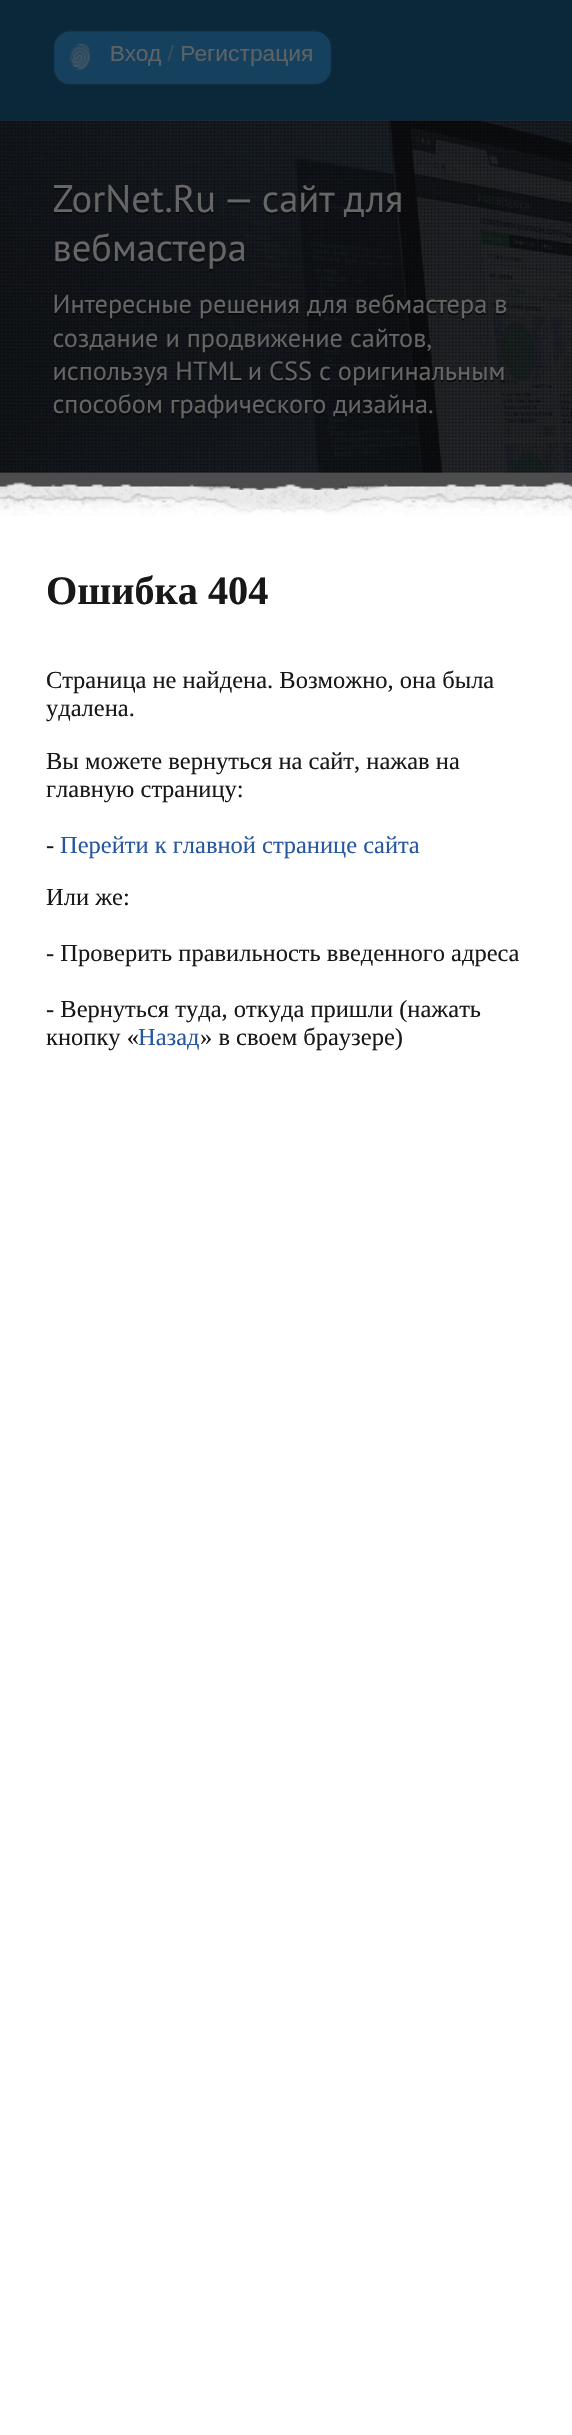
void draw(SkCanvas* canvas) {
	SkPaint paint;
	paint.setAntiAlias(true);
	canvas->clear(0xffffffff);
	canvas->drawImageRect(SkImages::DeferredFromEncodedData(SkData::MakeFromFileName("img1.png")), SkRect::MakeXYWH(0, 0, 572, 490), SkSamplingOptions());
	canvas->drawImageRect(SkImages::DeferredFromEncodedData(SkData::MakeFromFileName("img2.png")), SkRect::MakeXYWH(0, 482, 572, 34), SkSamplingOptions());
	SkFont f1(fontMgr->matchFamilyStyle("Liberation Serif", SkFontStyle::Bold()), 40.25);
	f1.setSubpixel(true);
	paint.setColor(0xff181818);
	canvas->drawString("Ошибка 404", 46, 604, f1, paint);
	SkFont f2(fontMgr->matchFamilyStyle("Liberation Serif", SkFontStyle::Normal()), 24.5);
	f2.setSubpixel(true);
	canvas->drawString("Страница не найдена. Возможно, она была", 46, 688, f2, paint);
	canvas->drawString("удалена.", 46, 716, f2, paint);
	canvas->drawString("Вы можете вернуться на сайт, нажав на", 46, 769, f2, paint);
	canvas->drawString("главную страницу:", 46, 797, f2, paint);
	canvas->drawString("-", 46, 853, f2, paint);
	paint.setColor(0xff27579e);
	canvas->drawString("Перейти к главной странице сайта", 60, 853, f2, paint);
	paint.setColor(0xff181818);
	canvas->drawString("Или же:", 46, 905, f2, paint);
	canvas->drawString("- Проверить правильность введенного адреса", 46, 961, f2, paint);
	canvas->drawString("- Вернуться туда, откуда пришли (нажать", 46, 1017, f2, paint);
	canvas->drawString("кнопку «", 46, 1045, f2, paint);
	paint.setColor(0xff27579e);
	canvas->drawString("Назад", 138, 1045, f2, paint);
	paint.setColor(0xff181818);
	canvas->drawString("» в своем браузере)", 200, 1045, f2, paint);
}
